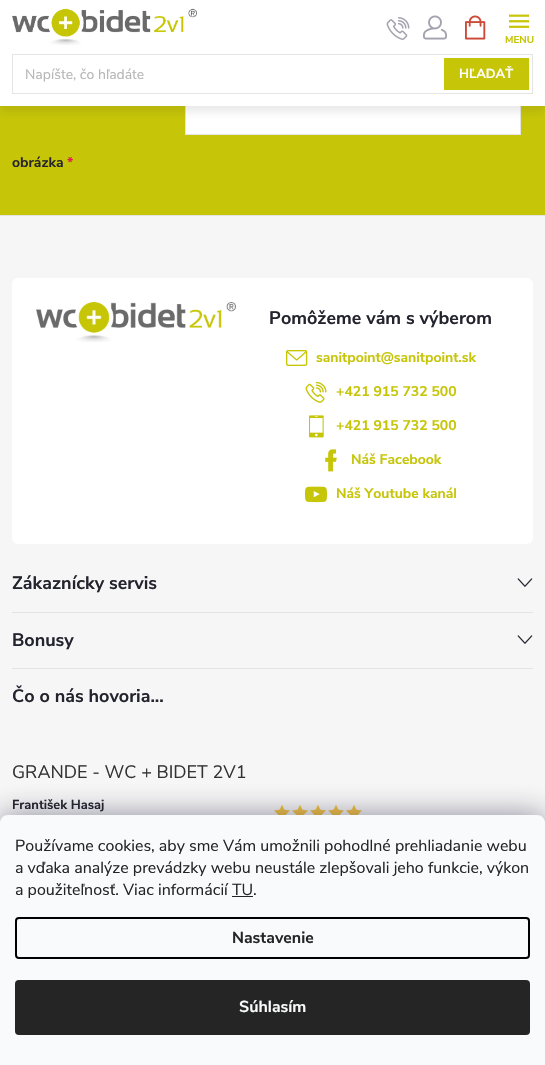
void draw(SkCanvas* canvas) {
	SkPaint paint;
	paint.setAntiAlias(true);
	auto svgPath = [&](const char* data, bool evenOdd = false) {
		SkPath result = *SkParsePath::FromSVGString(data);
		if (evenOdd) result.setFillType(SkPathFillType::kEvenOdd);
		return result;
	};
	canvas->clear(0xfff6f6f6);
	paint.setColor(0xffffffff);
	canvas->drawRect(SkRect::MakeXYWH(0, 0, 545, 54), paint);
	canvas->drawImageRect(SkImages::DeferredFromEncodedData(SkData::MakeFromFileName("img1.png")), SkRect::MakeXYWH(386, 17, 24, 23), SkSamplingOptions());
	canvas->drawImageRect(SkImages::DeferredFromEncodedData(SkData::MakeFromFileName("img2.png")), SkRect::MakeXYWH(423, 15, 24, 25), SkSamplingOptions());
	canvas->drawImageRect(SkImages::DeferredFromEncodedData(SkData::MakeFromFileName("img3.png")), SkRect::MakeXYWH(509, 14, 20, 14), SkSamplingOptions());
	SkFont f1(fontMgr->matchFamilyStyle("Nunito Sans", SkFontStyle::Bold()), 10);
	f1.setSubpixel(true);
	paint.setColor(0xffc6c507);
	canvas->drawString("MENU", 505, 43, f1, paint);
	canvas->drawRect(SkRect::MakeXYWH(0, 106, 545, 109), paint);
	paint.setColor(0xffffffff);
	canvas->drawRect(SkRect::MakeXYWH(186, 106, 334, 28), paint);
	paint.setStroke(true);
	paint.setStrokeWidth(1);
	paint.setColor(0xffe4e4e4);
	canvas->drawRect(SkRect::MakeXYWH(185.5, 79.5, 335, 55), paint);
	paint.setStroke(false);
	paint.setColor(0x1a24242e);
	paint.setMaskFilter(SkMaskFilter::MakeBlur(kNormal_SkBlurStyle, 4));
	canvas->drawRect(SkRect::MakeXYWH(0, 60, 545, 52), paint);
	paint.setMaskFilter(nullptr);
	paint.setColor(0xffffffff);
	canvas->drawRect(SkRect::MakeXYWH(0, 54, 545, 52), paint);
	canvas->drawImageRect(SkImages::DeferredFromEncodedData(SkData::MakeFromFileName("img4.png")), SkRect::MakeXYWH(12, 8, 185, 37), SkSamplingOptions());
	canvas->drawImageRect(SkImages::DeferredFromEncodedData(SkData::MakeFromFileName("img5.png")), SkRect::MakeXYWH(465, 15, 21, 25), SkSamplingOptions());
	paint.setStroke(true);
	paint.setColor(0xffe4e4e4);
	canvas->drawRect(SkRect::MakeXYWH(12.5, 54.5, 520, 39), paint);
	SkFont f2(fontMgr->matchFamilyStyle("Nunito Sans", SkFontStyle::Normal()), 14);
	f2.setSubpixel(true);
	paint.setStroke(false);
	paint.setColor(0xffb6b6b6);
	canvas->drawString("Napíšte, čo hľadáte", 25, 79, f2, paint);
	paint.setColor(0xffc6c507);
	canvas->drawRect(SkRect::MakeXYWH(444, 58, 85, 32), paint);
	SkFont f3(fontMgr->matchFamilyStyle("Nunito Sans", SkFontStyle::Bold()), 13);
	f3.setSubpixel(true);
	paint.setColor(0xffffffff);
	canvas->drawString("HĽADAŤ", 459, 78, f3, paint);
	SkFont f4(fontMgr->matchFamilyStyle("Nunito Sans", SkFontStyle::Bold()), 14);
	f4.setSubpixel(true);
	paint.setColor(0xff24242e);
	canvas->drawString("obrázka", 12, 167, f4, paint);
	paint.setColor(0xffe31e53);
	canvas->drawString("*", 67, 167, f4, paint);
	paint.setColor(0xffe4e4e4);
	canvas->drawRect(SkRect::MakeXYWH(0, 215, 545, 1), paint);
	paint.setColor(0xffffffff);
	canvas->drawRoundRect(SkRect::MakeXYWH(12, 278, 521, 266), 6, 6, paint);
	canvas->drawImageRect(SkImages::DeferredFromEncodedData(SkData::MakeFromFileName("img6.png")), SkRect::MakeXYWH(36, 302, 200, 40), SkSamplingOptions());
	SkFont f5(fontMgr->matchFamilyStyle("Nunito Sans", SkFontStyle::Bold()), 18);
	f5.setSubpixel(true);
	paint.setColor(0xff24242e);
	canvas->drawString("Pomôžeme vám s výberom", 269, 324, f5, paint);
	canvas->drawImageRect(SkImages::DeferredFromEncodedData(SkData::MakeFromFileName("img7.png")), SkRect::MakeXYWH(286, 350, 22, 16), SkSamplingOptions());
	paint.setColor(0xffc6c507);
	canvas->drawString("sanitpoint@sanitpoint.sk", 316, 362, f4, paint);
	canvas->drawImageRect(SkImages::DeferredFromEncodedData(SkData::MakeFromFileName("img8.png")), SkRect::MakeXYWH(305, 381, 22, 22), SkSamplingOptions());
	canvas->drawString("+421 915 732 500", 336, 396, f4, paint);
	canvas->drawImageRect(SkImages::DeferredFromEncodedData(SkData::MakeFromFileName("img9.png")), SkRect::MakeXYWH(309, 415, 15, 23), SkSamplingOptions());
	canvas->drawString("+421 915 732 500", 336, 430, f4, paint);
	canvas->drawImageRect(SkImages::DeferredFromEncodedData(SkData::MakeFromFileName("img10.png")), SkRect::MakeXYWH(325, 449, 12, 23), SkSamplingOptions());
	canvas->drawString("Náš Facebook", 351, 464, f4, paint);
	canvas->drawImageRect(SkImages::DeferredFromEncodedData(SkData::MakeFromFileName("img11.png")), SkRect::MakeXYWH(305, 486, 22, 17), SkSamplingOptions());
	canvas->drawString("Náš Youtube kanál", 336, 498, f4, paint);
	paint.setColor(0xffe4e4e4);
	canvas->drawRect(SkRect::MakeXYWH(12, 612, 521, 1), paint);
	paint.setColor(0xff24242e);
	canvas->drawString("Zákaznícky servis", 12, 589, f5, paint);
	canvas->drawImageRect(SkImages::DeferredFromEncodedData(SkData::MakeFromFileName("img12.png")), SkRect::MakeXYWH(517, 578, 16, 9), SkSamplingOptions());
	paint.setColor(0xffe4e4e4);
	canvas->drawRect(SkRect::MakeXYWH(12, 668, 521, 1), paint);
	paint.setColor(0xff24242e);
	canvas->drawString("Bonusy", 12, 646, f5, paint);
	canvas->drawImageRect(SkImages::DeferredFromEncodedData(SkData::MakeFromFileName("img12.png")), SkRect::MakeXYWH(517, 635, 16, 9), SkSamplingOptions());
	canvas->drawString("Čo o nás hovoria...", 12, 702, f5, paint);
	SkFont f6(fontMgr->matchFamilyStyle("Nunito Sans", SkFontStyle::Normal()), 18);
	f6.setSubpixel(true);
	paint.setColor(0xff333333);
	canvas->drawString("GRANDE - WC + BIDET 2V1", 12, 778, f6, paint);
	paint.setColor(0xff24242e);
	canvas->drawString("František Hasaj", 12, 809, f3, paint);
	canvas->drawImageRect(SkImages::DeferredFromEncodedData(SkData::MakeFromFileName("img13.png")), SkRect::MakeXYWH(274, 804, 16, 11), SkSamplingOptions());
	canvas->drawImageRect(SkImages::DeferredFromEncodedData(SkData::MakeFromFileName("img13.png")), SkRect::MakeXYWH(292, 804, 16, 11), SkSamplingOptions());
	canvas->drawImageRect(SkImages::DeferredFromEncodedData(SkData::MakeFromFileName("img13.png")), SkRect::MakeXYWH(310, 804, 16, 11), SkSamplingOptions());
	canvas->drawImageRect(SkImages::DeferredFromEncodedData(SkData::MakeFromFileName("img13.png")), SkRect::MakeXYWH(328, 804, 16, 11), SkSamplingOptions());
	canvas->drawImageRect(SkImages::DeferredFromEncodedData(SkData::MakeFromFileName("img13.png")), SkRect::MakeXYWH(346, 804, 16, 11), SkSamplingOptions());
	paint.setColor(0x801b1939);
	paint.setMaskFilter(SkMaskFilter::MakeBlur(kNormal_SkBlurStyle, 15));
	canvas->drawRoundRect(SkRect::MakeXYWH(0, 815, 545, 250), 8, 8, paint);
	paint.setMaskFilter(nullptr);
	paint.setColor(0xfff8fafb);
	canvas->drawPath(svgPath("M8 815H537C541.5 815 545 818.5 545 823V1065H0V823C0 818.5 3.5 815 8 815Z"), paint);
	SkFont f7(fontMgr->matchFamilyStyle("Nunito Sans", SkFontStyle::Normal()), 16);
	f7.setSubpixel(true);
	paint.setColor(0xff252525);
	canvas->drawString("Používame cookies, aby sme Vám umožnili pohodlné prehliadanie webu", 15, 851, f7, paint);
	canvas->drawString("a vďaka analýze prevádzky webu neustále zlepšovali jeho funkcie, výkon", 15, 873, f7, paint);
	canvas->drawString("a použiteľnosť. Viac informácií TU.", 15, 895, f7, paint);
	canvas->drawRect(SkRect::MakeXYWH(232, 896, 21, 1), paint);
	paint.setStroke(true);
	paint.setStrokeWidth(2);
	paint.setColor(0xff000000);
	canvas->drawRoundRect(SkRect::MakeXYWH(16, 918, 513, 40), 3, 3, paint);
	SkFont f8(fontMgr->matchFamilyStyle("Nunito Sans", SkFontStyle::Bold()), 16);
	f8.setSubpixel(true);
	paint.setStroke(false);
	paint.setColor(0xff252525);
	canvas->drawString("Nastavenie", 232, 943, f8, paint);
	canvas->drawRoundRect(SkRect::MakeXYWH(15, 980, 515, 55), 4, 4, paint);
	paint.setColor(0xfff8fafb);
	canvas->drawString("Súhlasím", 239, 1012, f8, paint);
}
